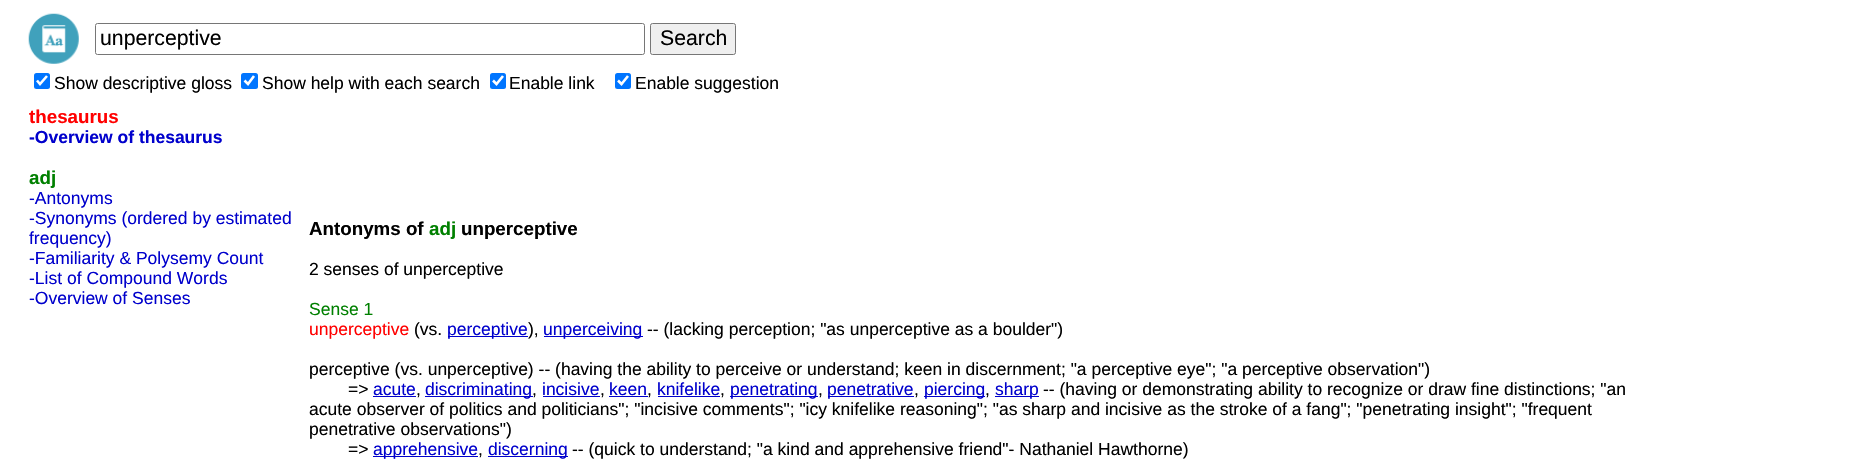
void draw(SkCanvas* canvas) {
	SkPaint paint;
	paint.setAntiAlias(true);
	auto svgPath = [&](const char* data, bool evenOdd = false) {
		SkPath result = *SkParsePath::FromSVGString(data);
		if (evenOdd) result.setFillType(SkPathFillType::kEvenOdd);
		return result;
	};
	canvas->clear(0xffffffff);
	canvas->drawImageRect(SkImages::DeferredFromEncodedData(SkData::MakeFromFileName("img1.png")), SkRect::MakeXYWH(28, 13, 51, 51), SkSamplingOptions());
	paint.setStroke(true);
	paint.setStrokeWidth(1);
	paint.setColor(0xff767676);
	canvas->drawRoundRect(SkRect::MakeXYWH(95.5, 23.5, 549, 31), 2, 2, paint);
	SkFont f1(fontMgr->matchFamilyStyle("Liberation Sans", SkFontStyle::Normal()), 21.25);
	f1.setSubpixel(true);
	paint.setStroke(false);
	paint.setColor(0xff000000);
	canvas->drawString("unperceptive", 100, 45, f1, paint);
	paint.setColor(0xffefefef);
	canvas->drawRoundRect(SkRect::MakeXYWH(650.5, 23.5, 85, 31), 2, 2, paint);
	paint.setStroke(true);
	paint.setColor(0xff767676);
	canvas->drawRoundRect(SkRect::MakeXYWH(650.5, 23.5, 85, 31), 2, 2, paint);
	paint.setStroke(false);
	paint.setColor(0xff000000);
	canvas->drawString("Search", 660, 45, f1, paint);
	paint.setColor(0xff0075ff);
	canvas->drawRoundRect(SkRect::MakeXYWH(34, 73, 16, 16), 2.5, 2.5, paint);
	paint.setStroke(true);
	paint.setStrokeWidth(2.6);
	paint.setColor(0xffffffff);
	canvas->drawPath(svgPath("M37 80.5L40 84L47 76"), paint);
	SkFont f2(fontMgr->matchFamilyStyle("Liberation Sans", SkFontStyle::Normal()), 17.5);
	f2.setSubpixel(true);
	paint.setStroke(false);
	paint.setColor(0xff000000);
	canvas->drawString("Show descriptive gloss", 54, 89, f2, paint);
	paint.setColor(0xff0075ff);
	canvas->drawRoundRect(SkRect::MakeXYWH(241, 73, 17, 16), 2.5, 2.5, paint);
	paint.setStroke(true);
	paint.setColor(0xffffffff);
	canvas->drawPath(svgPath("M244.5 80.5L248 84L254 76"), paint);
	paint.setStroke(false);
	paint.setColor(0xff000000);
	canvas->drawString("Show help with each search", 262, 89, f2, paint);
	paint.setColor(0xff0075ff);
	canvas->drawRoundRect(SkRect::MakeXYWH(490, 73, 16, 16), 2.5, 2.5, paint);
	paint.setStroke(true);
	paint.setColor(0xffffffff);
	canvas->drawPath(svgPath("M493 80.5L496.5 84L503 76"), paint);
	paint.setStroke(false);
	paint.setColor(0xff000000);
	canvas->drawString("Enable link", 509, 89, f2, paint);
	paint.setColor(0xff0075ff);
	canvas->drawRoundRect(SkRect::MakeXYWH(615, 73, 16, 16), 2.5, 2.5, paint);
	paint.setStroke(true);
	paint.setColor(0xffffffff);
	canvas->drawPath(svgPath("M618 80.5L621.5 84L628 76"), paint);
	paint.setStroke(false);
	paint.setColor(0xff000000);
	canvas->drawString("Enable suggestion", 635, 89, f2, paint);
	SkFont f3(fontMgr->matchFamilyStyle("Liberation Sans", SkFontStyle::Bold()), 18.75);
	f3.setSubpixel(true);
	paint.setColor(0xffff0000);
	canvas->drawString("thesaurus", 29, 123, f3, paint);
	SkFont f4(fontMgr->matchFamilyStyle("Liberation Sans", SkFontStyle::Bold()), 17.5);
	f4.setSubpixel(true);
	paint.setColor(0xff0000cc);
	canvas->drawString("-Overview of thesaurus", 29, 143, f4, paint);
	paint.setColor(0xff008000);
	canvas->drawString("adj", 29, 184, f3, paint);
	paint.setColor(0xff0000cc);
	canvas->drawString("-Antonyms", 29, 204, f2, paint);
	canvas->drawString("-Synonyms (ordered by estimated", 29, 224, f2, paint);
	canvas->drawString("frequency)", 29, 244, f2, paint);
	canvas->drawString("-Familiarity & Polysemy Count", 29, 264, f2, paint);
	canvas->drawString("-List of Compound Words", 29, 284, f2, paint);
	canvas->drawString("-Overview of Senses", 29, 304, f2, paint);
	paint.setColor(0xff000000);
	canvas->drawString("Antonyms of", 309, 235, f3, paint);
	paint.setColor(0xff008000);
	canvas->drawString("adj", 429, 235, f3, paint);
	paint.setColor(0xff000000);
	canvas->drawString("unperceptive", 461, 235, f3, paint);
	canvas->drawString("2 senses of unperceptive", 309, 275, f2, paint);
	paint.setColor(0xff008000);
	canvas->drawString("Sense 1", 309, 315, f2, paint);
	paint.setColor(0xffff0000);
	canvas->drawString("unperceptive", 309, 335, f2, paint);
	paint.setColor(0xff000000);
	canvas->drawString("(vs.", 414, 335, f2, paint);
	paint.setColor(0xff0000cc);
	canvas->drawRect(SkRect::MakeXYWH(448, 336, 80, 1), paint);
	canvas->drawString("perceptive", 447, 335, f2, paint);
	paint.setColor(0xff000000);
	canvas->drawString("),", 528, 335, f2, paint);
	paint.setColor(0xff0000cc);
	canvas->drawRect(SkRect::MakeXYWH(544, 336, 99, 1), paint);
	canvas->drawString("unperceiving", 543, 335, f2, paint);
	paint.setColor(0xff000000);
	canvas->drawString("-- (lacking perception; \"as unperceptive as a boulder\")", 647, 335, f2, paint);
	canvas->drawString("perceptive (vs. unperceptive) -- (having the ability to perceive or understand; keen in discernment; \"a perceptive eye\"; \"a perceptive observation\")", 309, 375, f2, paint);
	canvas->drawString("=>", 348, 395, f2, paint);
	paint.setColor(0xff0000cc);
	canvas->drawString("acute", 373, 395, f2, paint);
	canvas->drawRect(SkRect::MakeXYWH(373, 396, 43, 1), paint);
	canvas->drawRect(SkRect::MakeXYWH(425, 396, 108, 1), paint);
	canvas->drawString("discriminating", 425, 395, f2, paint);
	canvas->drawString("incisive", 542, 395, f2, paint);
	canvas->drawRect(SkRect::MakeXYWH(543, 396, 57, 1), paint);
	canvas->drawString("keen", 609, 395, f2, paint);
	canvas->drawRect(SkRect::MakeXYWH(609, 396, 39, 1), paint);
	canvas->drawString("knifelike", 657, 395, f2, paint);
	canvas->drawRect(SkRect::MakeXYWH(658, 396, 62, 1), paint);
	canvas->drawRect(SkRect::MakeXYWH(730, 396, 88, 1), paint);
	canvas->drawString("penetrating", 730, 395, f2, paint);
	canvas->drawRect(SkRect::MakeXYWH(828, 396, 86, 1), paint);
	canvas->drawString("penetrative", 827, 395, f2, paint);
	canvas->drawRect(SkRect::MakeXYWH(924, 396, 61, 1), paint);
	canvas->drawString("piercing", 924, 395, f2, paint);
	canvas->drawRect(SkRect::MakeXYWH(995, 396, 44, 1), paint);
	canvas->drawString("sharp", 995, 395, f2, paint);
	paint.setColor(0xff000000);
	canvas->drawString("-- (having or demonstrating ability to recognize or draw fine distinctions; \"an", 1043, 395, f2, paint);
	canvas->drawString(",", 416, 395, f2, paint);
	canvas->drawString(",", 532, 395, f2, paint);
	canvas->drawString(",", 600, 395, f2, paint);
	canvas->drawString(",", 647, 395, f2, paint);
	canvas->drawString(",", 720, 395, f2, paint);
	canvas->drawString(",", 818, 395, f2, paint);
	canvas->drawString(",", 914, 395, f2, paint);
	canvas->drawString(",", 985, 395, f2, paint);
	canvas->drawString("acute observer of politics and politicians\"; \"incisive comments\"; \"icy knifelike reasoning\"; \"as sharp and incisive as the stroke of a fang\"; \"penetrating insight\"; \"frequent", 309, 415, f2, paint);
	canvas->drawString("penetrative observations\")", 309, 435, f2, paint);
	canvas->drawString("=>", 348, 455, f2, paint);
	paint.setColor(0xff0000cc);
	canvas->drawRect(SkRect::MakeXYWH(373, 456, 105, 1), paint);
	canvas->drawString("apprehensive", 373, 455, f2, paint);
	canvas->drawRect(SkRect::MakeXYWH(488, 456, 80, 1), paint);
	canvas->drawString("discerning", 488, 455, f2, paint);
	paint.setColor(0xff000000);
	canvas->drawString("-- (quick to understand; \"a kind and apprehensive friend\"- Nathaniel Hawthorne)", 572, 455, f2, paint);
	canvas->drawString(",", 478, 455, f2, paint);
}
